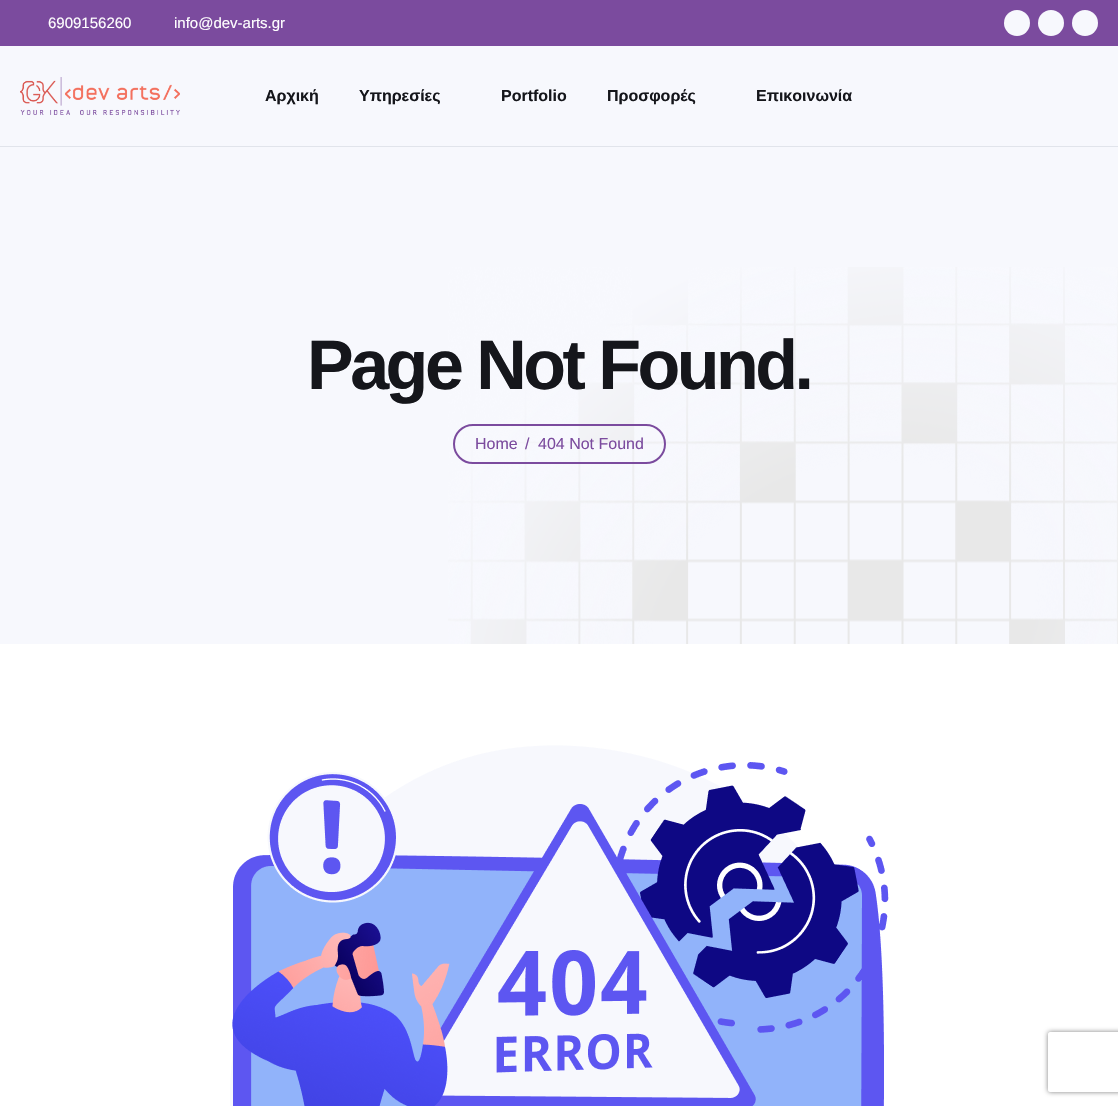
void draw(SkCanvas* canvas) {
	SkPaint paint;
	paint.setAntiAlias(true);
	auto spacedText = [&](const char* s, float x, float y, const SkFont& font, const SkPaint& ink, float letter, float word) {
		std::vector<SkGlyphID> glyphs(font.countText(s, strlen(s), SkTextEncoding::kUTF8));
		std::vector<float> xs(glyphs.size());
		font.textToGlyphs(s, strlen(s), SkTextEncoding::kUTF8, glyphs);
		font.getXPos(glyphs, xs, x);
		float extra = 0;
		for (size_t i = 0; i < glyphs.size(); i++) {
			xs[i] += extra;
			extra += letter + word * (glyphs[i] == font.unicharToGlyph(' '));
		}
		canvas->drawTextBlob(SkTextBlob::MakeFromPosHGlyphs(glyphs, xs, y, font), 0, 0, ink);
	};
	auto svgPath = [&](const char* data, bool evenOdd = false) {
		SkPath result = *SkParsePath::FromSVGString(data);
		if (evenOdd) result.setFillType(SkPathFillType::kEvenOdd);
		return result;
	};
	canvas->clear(0xffffffff);
	paint.setColor(0xff7b4b9e);
	canvas->drawRect(SkRect::MakeXYWH(0, 0, 1118, 46), paint);
	SkFont f1(fontMgr->matchFamilyStyle("Liberation Sans", SkFontStyle::Normal()), 15);
	f1.setSubpixel(true);
	paint.setColor(0xffffffff);
	canvas->drawString("6909156260", 48, 28, f1, paint);
	canvas->drawString("info@dev-arts.gr", 174, 28, f1, paint);
	paint.setColor(0xfff7f8fd);
	canvas->drawCircle(1017, 23, 13, paint);
	canvas->drawCircle(1051, 23, 13, paint);
	canvas->drawCircle(1085, 23, 13, paint);
	canvas->drawRect(SkRect::MakeXYWH(0, 46, 1118, 100), paint);
	paint.setColor(0xffe1e4eb);
	canvas->drawRect(SkRect::MakeXYWH(0, 146, 1118, 1), paint);
	canvas->drawImageRect(SkImages::DeferredFromEncodedData(SkData::MakeFromFileName("img1.png")), SkRect::MakeXYWH(20, 77, 160, 38), SkSamplingOptions());
	SkFont f2(fontMgr->matchFamilyStyle("Liberation Sans", SkFontStyle::Bold()), 16);
	f2.setSubpixel(true);
	paint.setColor(0xff15161b);
	canvas->drawString("Αρχική", 265, 101, f2, paint);
	canvas->drawString("Υπηρεσίες", 359, 101, f2, paint);
	canvas->drawString("Portfolio", 501, 101, f2, paint);
	canvas->drawString("Προσφορές", 607, 101, f2, paint);
	canvas->drawString("Επικοινωνία", 756, 101, f2, paint);
	paint.setColor(0xfff7f8fd);
	canvas->drawRect(SkRect::MakeXYWH(0, 147, 1118, 497), paint);
	canvas->drawImageRect(SkImages::DeferredFromEncodedData(SkData::MakeFromFileName("img2.png")), SkRect::MakeXYWH(448, 267, 670, 377), SkSamplingOptions());
	SkFont f3(fontMgr->matchFamilyStyle("Liberation Sans", SkFontStyle::Bold()), 70);
	f3.setSubpixel(true);
	paint.setColor(0xff15161b);
	spacedText("Page Not Found.", 307, 389, f3, paint, -3.5, 0);
	paint.setStroke(true);
	paint.setStrokeWidth(2);
	paint.setColor(0xff7b4b9e);
	canvas->drawRoundRect(SkRect::MakeXYWH(454, 425, 211, 38), 19, 19, paint);
	SkFont f4(fontMgr->matchFamilyStyle("Liberation Sans", SkFontStyle::Normal()), 16);
	f4.setSubpixel(true);
	paint.setStroke(false);
	canvas->drawString("Home", 475, 449, f4, paint);
	canvas->drawString("/", 525, 449, f4, paint);
	canvas->drawString("404 Not Found", 538, 449, f4, paint);
	canvas->drawImageRect(SkImages::DeferredFromEncodedData(SkData::MakeFromFileName("img3.png")), SkRect::MakeXYWH(230, 745, 659, 361), SkSamplingOptions());
	canvas->save();
	canvas->clipPath(svgPath("M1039 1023H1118V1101H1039ZM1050 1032H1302C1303 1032 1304 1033 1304 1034V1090C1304 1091 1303 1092 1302 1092H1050C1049 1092 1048 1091 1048 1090V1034C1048 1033 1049 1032 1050 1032Z", true), true);
	paint.setColor(0xff808080);
	paint.setMaskFilter(SkMaskFilter::MakeBlur(kNormal_SkBlurStyle, 2.5));
	canvas->drawRoundRect(SkRect::MakeXYWH(1048, 1032, 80, 60), 2, 2, paint);
	paint.setMaskFilter(nullptr);
	canvas->restore();
}
